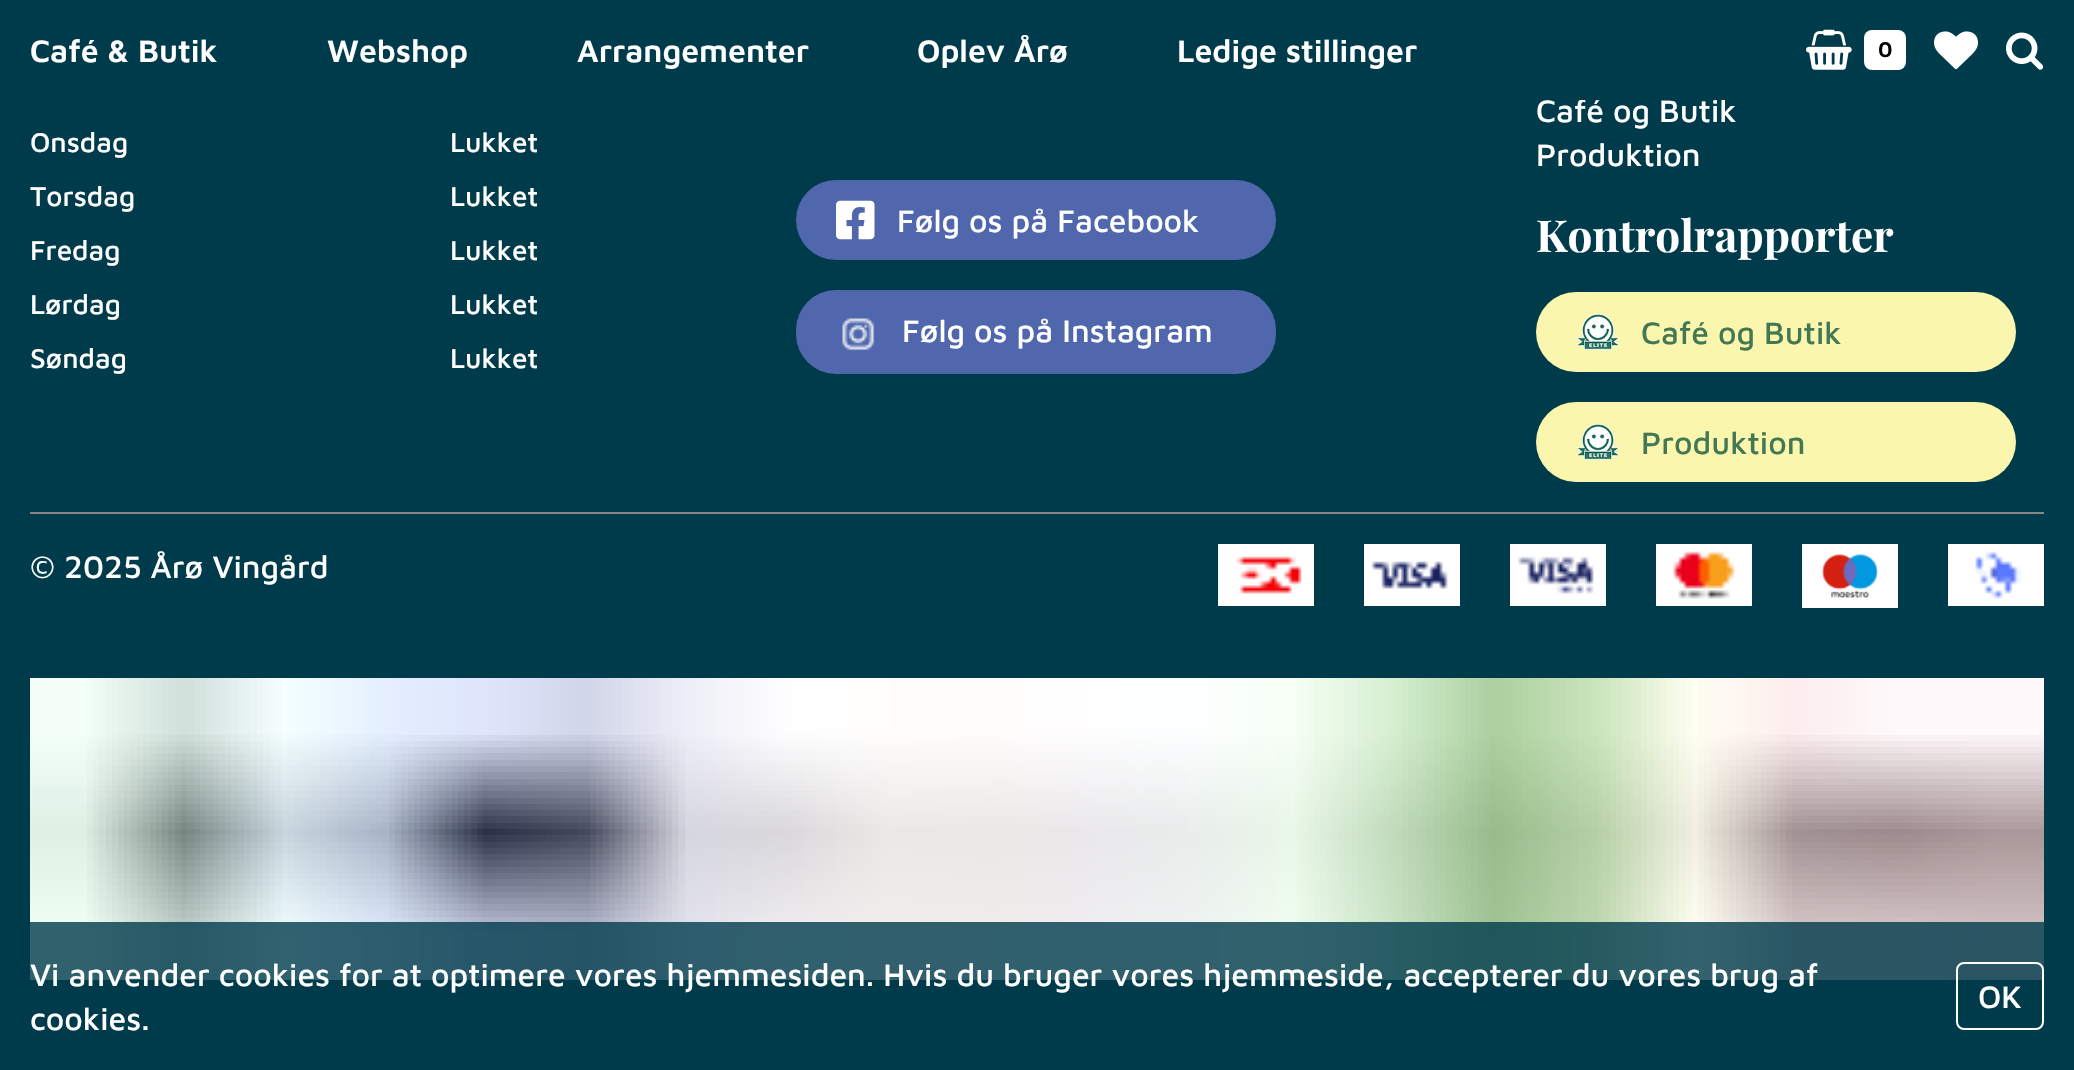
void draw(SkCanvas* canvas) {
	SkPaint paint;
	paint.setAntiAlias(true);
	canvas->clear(0xff003b4c);
	SkFont f1(fontMgr->matchFamilyStyle("Maven Pro", SkFontStyle(500, SkFontStyle::kNormal_Width, SkFontStyle::kUpright_Slant)), 32);
	f1.setSubpixel(true);
	paint.setColor(0xffffffff);
	canvas->drawString("Café og Butik", 1536, 122, f1, paint);
	paint.setColor(0xff003b4c);
	canvas->drawRect(SkRect::MakeXYWH(1579, 99, 146, 1), paint);
	SkFont f2(fontMgr->matchFamilyStyle("Maven Pro", SkFontStyle(600, SkFontStyle::kNormal_Width, SkFontStyle::kUpright_Slant)), 32);
	f2.setSubpixel(true);
	paint.setColor(0xffffffff);
	canvas->drawString("Café & Butik", 30, 62, f2, paint);
	canvas->drawString("Webshop", 327, 62, f2, paint);
	canvas->drawString("Arrangementer", 577, 62, f2, paint);
	canvas->drawString("Oplev Årø", 917, 62, f2, paint);
	canvas->drawString("Ledige stillinger", 1177, 62, f2, paint);
	canvas->drawImageRect(SkImages::DeferredFromEncodedData(SkData::MakeFromFileName("img1.png")), SkRect::MakeXYWH(1806, 29, 46, 41), SkSamplingOptions());
	canvas->drawRoundRect(SkRect::MakeXYWH(1864, 30, 42, 40), 8, 8, paint);
	SkFont f3(fontMgr->matchFamilyStyle("Maven Pro", SkFontStyle(600, SkFontStyle::kNormal_Width, SkFontStyle::kUpright_Slant)), 22);
	f3.setSubpixel(true);
	paint.setColor(0xff000000);
	canvas->drawString("0", 1878, 57, f3, paint);
	canvas->drawImageRect(SkImages::DeferredFromEncodedData(SkData::MakeFromFileName("img2.png")), SkRect::MakeXYWH(1934, 31, 44, 39), SkSamplingOptions());
	canvas->drawImageRect(SkImages::DeferredFromEncodedData(SkData::MakeFromFileName("img3.png")), SkRect::MakeXYWH(2006, 32, 38, 38), SkSamplingOptions());
	SkFont f4(fontMgr->matchFamilyStyle("Maven Pro", SkFontStyle(500, SkFontStyle::kNormal_Width, SkFontStyle::kUpright_Slant)), 28);
	f4.setSubpixel(true);
	paint.setColor(0xffffffff);
	canvas->drawString("Onsdag", 30, 152, f4, paint);
	canvas->drawString("Lukket", 450, 152, f4, paint);
	canvas->drawString("Torsdag", 30, 206, f4, paint);
	canvas->drawString("Lukket", 450, 206, f4, paint);
	canvas->drawString("Fredag", 30, 260, f4, paint);
	canvas->drawString("Lukket", 450, 260, f4, paint);
	canvas->drawString("Lørdag", 30, 314, f4, paint);
	canvas->drawString("Lukket", 450, 314, f4, paint);
	canvas->drawString("Søndag", 30, 368, f4, paint);
	canvas->drawString("Lukket", 450, 368, f4, paint);
	paint.setColor(0xff5067ae);
	canvas->drawRoundRect(SkRect::MakeXYWH(796, 180, 480, 80), 40, 40, paint);
	canvas->drawImageRect(SkImages::DeferredFromEncodedData(SkData::MakeFromFileName("img4.png")), SkRect::MakeXYWH(836, 200, 39, 40), SkSamplingOptions());
	paint.setColor(0xffffffff);
	canvas->drawString("Følg os på Facebook", 897, 232, f1, paint);
	paint.setColor(0xff5067ae);
	canvas->drawRoundRect(SkRect::MakeXYWH(796, 290, 480, 84), 40, 40, paint);
	canvas->drawImageRect(SkImages::DeferredFromEncodedData(SkData::MakeFromFileName("img5.png")), SkRect::MakeXYWH(842, 318, 33, 33), SkSamplingOptions());
	paint.setColor(0xffffffff);
	canvas->drawString("Følg os på Instagram", 902, 342, f1, paint);
	canvas->drawString("Produktion", 1536, 166, f1, paint);
	SkFont f5(fontMgr->matchFamilyStyle("Playfair Display", SkFontStyle::Bold()), 44);
	f5.setSubpixel(true);
	canvas->drawString("Kontrolrapporter", 1536, 252, f5, paint);
	paint.setColor(0xfffaf6ad);
	canvas->drawRoundRect(SkRect::MakeXYWH(1536, 292, 480, 80), 40, 40, paint);
	canvas->drawImageRect(SkImages::DeferredFromEncodedData(SkData::MakeFromFileName("img6.png")), SkRect::MakeXYWH(1576, 314, 44, 36), SkSamplingOptions());
	paint.setColor(0xff447855);
	canvas->drawString("Café og Butik", 1641, 344, f1, paint);
	paint.setColor(0xfffaf6ad);
	canvas->drawRoundRect(SkRect::MakeXYWH(1536, 402, 480, 80), 40, 40, paint);
	canvas->drawImageRect(SkImages::DeferredFromEncodedData(SkData::MakeFromFileName("img6.png")), SkRect::MakeXYWH(1576, 424, 44, 36), SkSamplingOptions());
	paint.setColor(0xff447855);
	canvas->drawString("Produktion", 1641, 454, f1, paint);
	paint.setColor(0xff878787);
	canvas->drawRect(SkRect::MakeXYWH(30, 512, 2014, 2), paint);
	paint.setColor(0xffffffff);
	canvas->drawString("© 2025 Årø Vingård", 30, 578, f1, paint);
	canvas->drawImageRect(SkImages::DeferredFromEncodedData(SkData::MakeFromFileName("img7.png")), SkRect::MakeXYWH(1218, 544, 96, 62), SkSamplingOptions());
	canvas->drawImageRect(SkImages::DeferredFromEncodedData(SkData::MakeFromFileName("img8.png")), SkRect::MakeXYWH(1364, 544, 96, 62), SkSamplingOptions());
	canvas->drawImageRect(SkImages::DeferredFromEncodedData(SkData::MakeFromFileName("img9.png")), SkRect::MakeXYWH(1510, 544, 96, 62), SkSamplingOptions());
	canvas->drawImageRect(SkImages::DeferredFromEncodedData(SkData::MakeFromFileName("img10.png")), SkRect::MakeXYWH(1656, 544, 96, 62), SkSamplingOptions());
	canvas->drawImageRect(SkImages::DeferredFromEncodedData(SkData::MakeFromFileName("img11.png")), SkRect::MakeXYWH(1802, 544, 96, 64), SkSamplingOptions());
	canvas->drawImageRect(SkImages::DeferredFromEncodedData(SkData::MakeFromFileName("img12.png")), SkRect::MakeXYWH(1948, 544, 96, 62), SkSamplingOptions());
	canvas->drawImageRect(SkImages::DeferredFromEncodedData(SkData::MakeFromFileName("img13.png")), SkRect::MakeXYWH(30, 678, 2014, 302), SkSamplingOptions());
	paint.setColor(0xcc003b4c);
	canvas->drawRect(SkRect::MakeXYWH(30, 922, 2014, 58), paint);
	paint.setColor(0xffffffff);
	canvas->drawString("Vi anvender cookies for at optimere vores hjemmesiden. Hvis du bruger vores hjemmeside, accepterer du vores brug af", 30, 986, f1, paint);
	canvas->drawString("cookies.", 30, 1030, f1, paint);
	paint.setStroke(true);
	paint.setStrokeWidth(2);
	canvas->drawRoundRect(SkRect::MakeXYWH(1957, 963, 86, 66), 7, 7, paint);
	paint.setStroke(false);
	canvas->drawString("OK", 1978, 1008, f1, paint);
}
